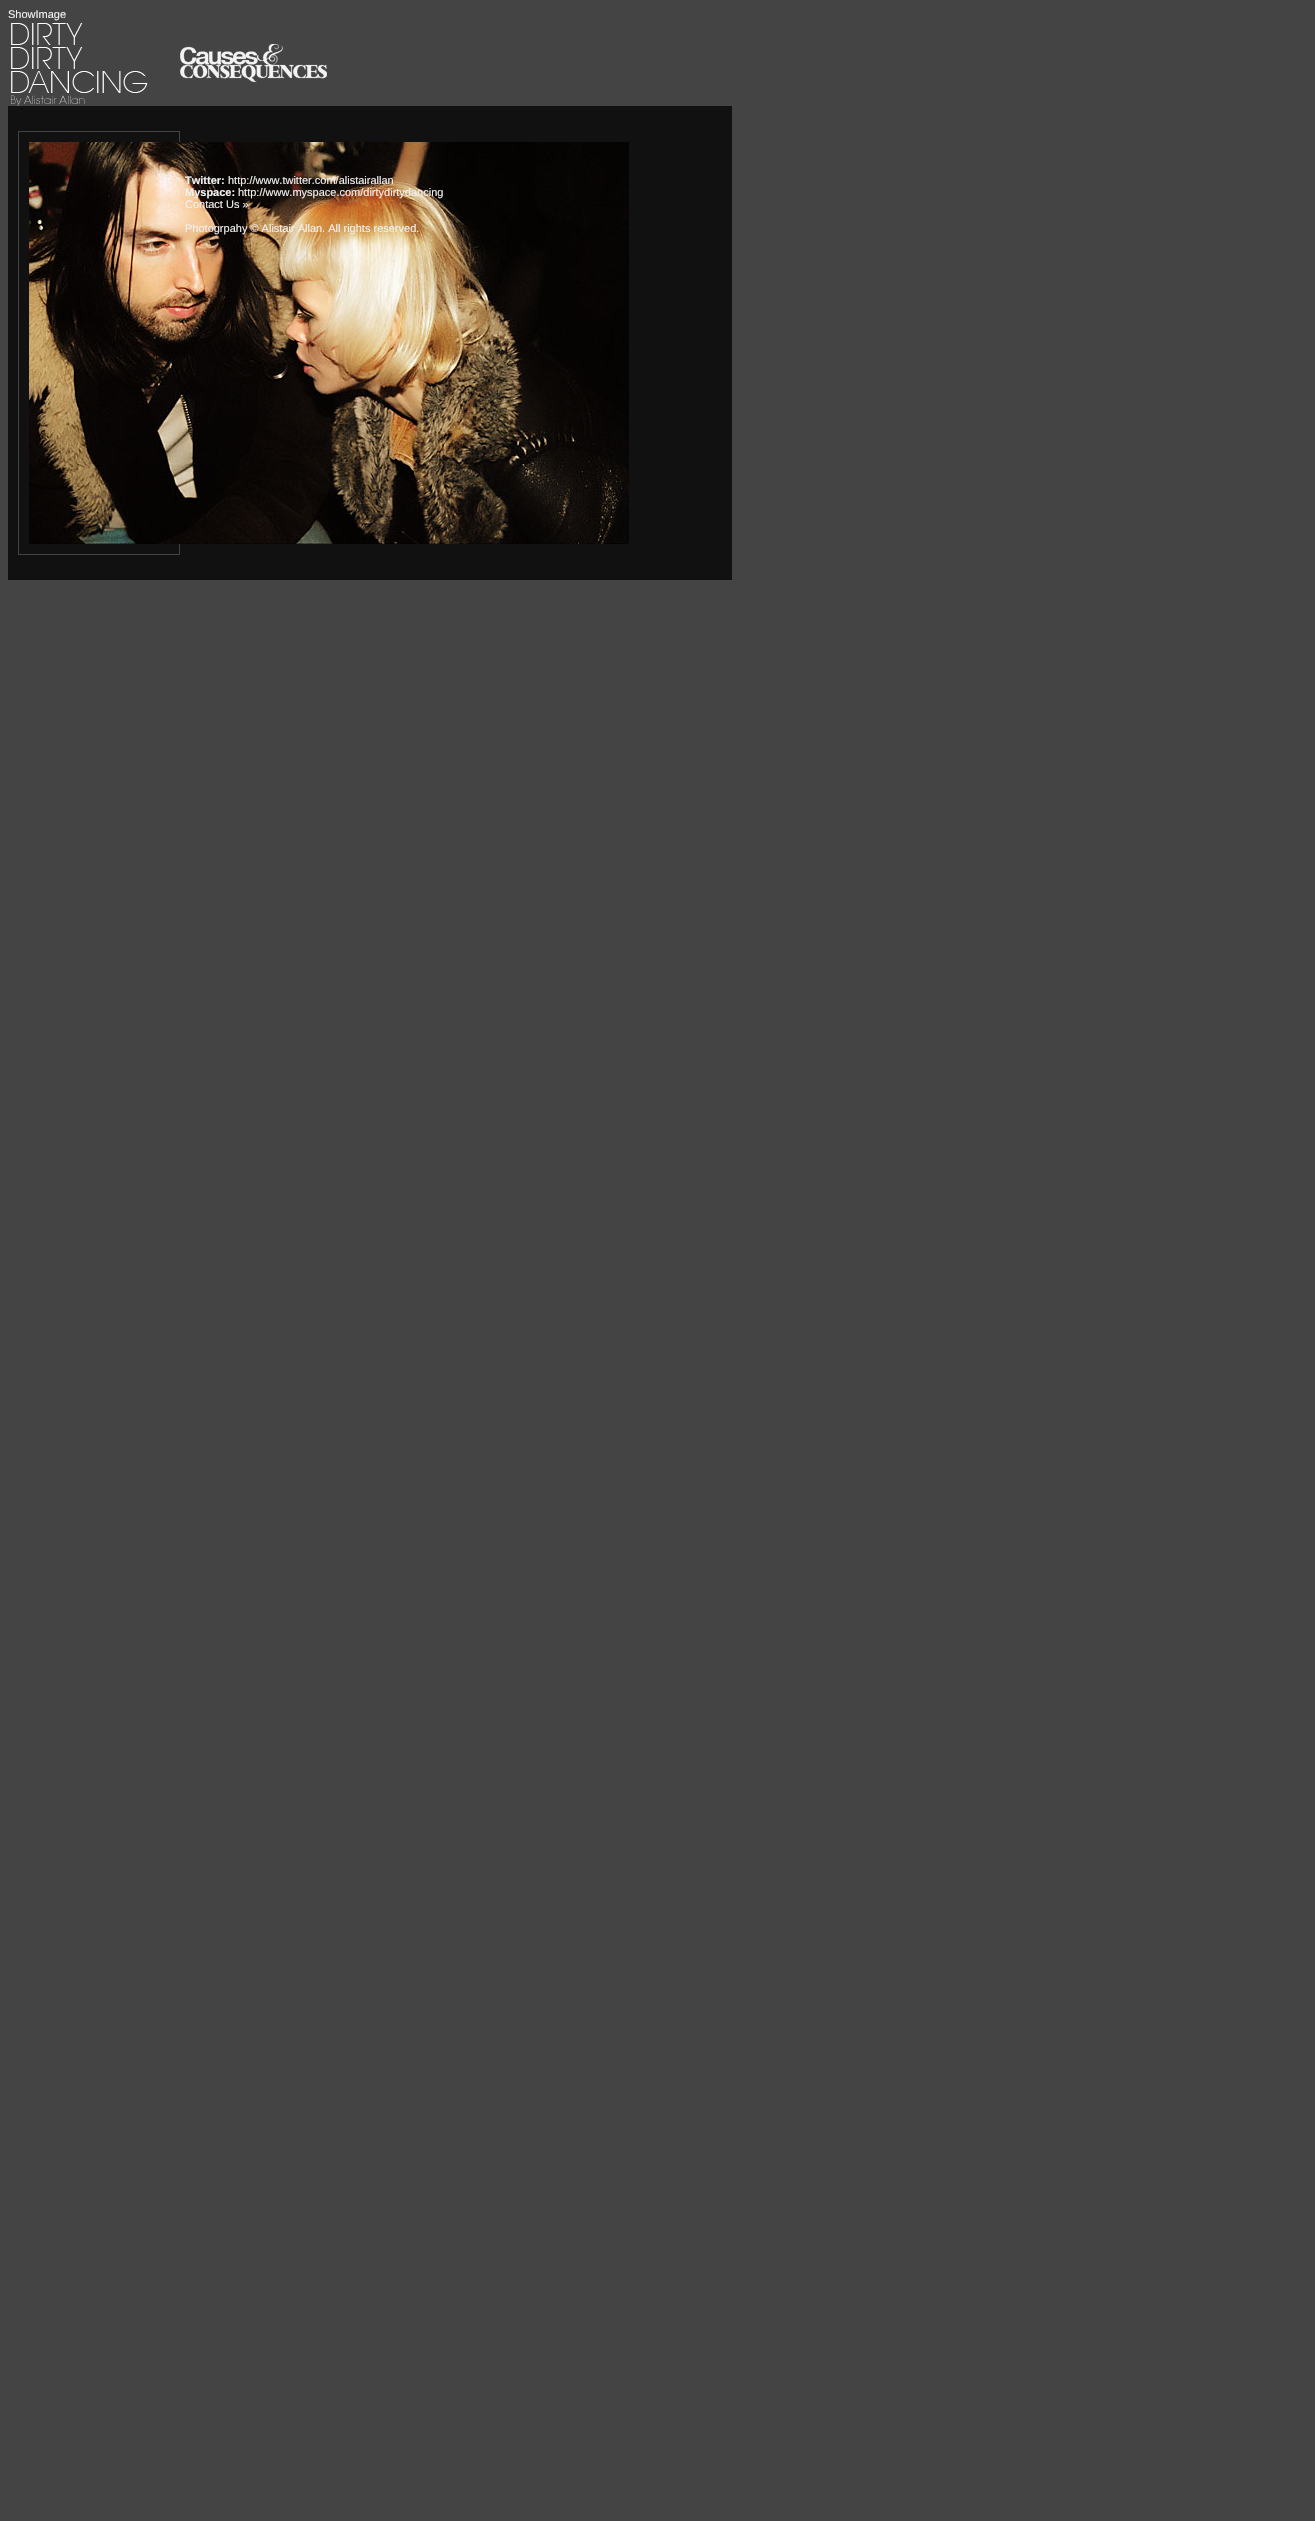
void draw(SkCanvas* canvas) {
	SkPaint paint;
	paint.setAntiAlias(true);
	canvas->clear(0xff444444);
	SkFont f1(fontMgr->matchFamilyStyle("Liberation Sans", SkFontStyle::Normal()), 11);
	f1.setSubpixel(true);
	paint.setColor(0xfff0f0f0);
	canvas->drawString("ShowImage", 8, 18, f1, paint);
	canvas->drawImageRect(SkImages::DeferredFromEncodedData(SkData::MakeFromFileName("img1.png")), SkRect::MakeXYWH(11, 23, 137, 83), SkSamplingOptions());
	canvas->drawImageRect(SkImages::DeferredFromEncodedData(SkData::MakeFromFileName("img2.png")), SkRect::MakeXYWH(180, 44, 147, 38), SkSamplingOptions());
	paint.setColor(0xff111111);
	canvas->drawRect(SkRect::MakeXYWH(8, 106, 724, 474), paint);
	paint.setStroke(true);
	paint.setStrokeWidth(1);
	paint.setColor(0xff444444);
	canvas->drawRect(SkRect::MakeXYWH(18.5, 131.5, 161, 423), paint);
	canvas->drawImageRect(SkImages::DeferredFromEncodedData(SkData::MakeFromFileName("img3.png")), SkRect::MakeXYWH(29, 142, 600, 402), SkSamplingOptions());
	SkFont f2(fontMgr->matchFamilyStyle("Liberation Sans", SkFontStyle::Bold()), 11);
	f2.setSubpixel(true);
	paint.setStroke(false);
	paint.setColor(0xfff0f0f0);
	canvas->drawString("Twitter:", 185, 184, f2, paint);
	canvas->drawString("http://www.twitter.com/alistairallan", 228, 184, f1, paint);
	canvas->drawString("Myspace:", 185, 196, f2, paint);
	canvas->drawString("http://www.myspace.com/dirtydirtydancing", 238, 196, f1, paint);
	canvas->drawString("Contact Us »", 185, 208, f1, paint);
	canvas->drawString("Photogrpahy © Alistair Allan. All rights reserved.", 185, 232, f1, paint);
}
